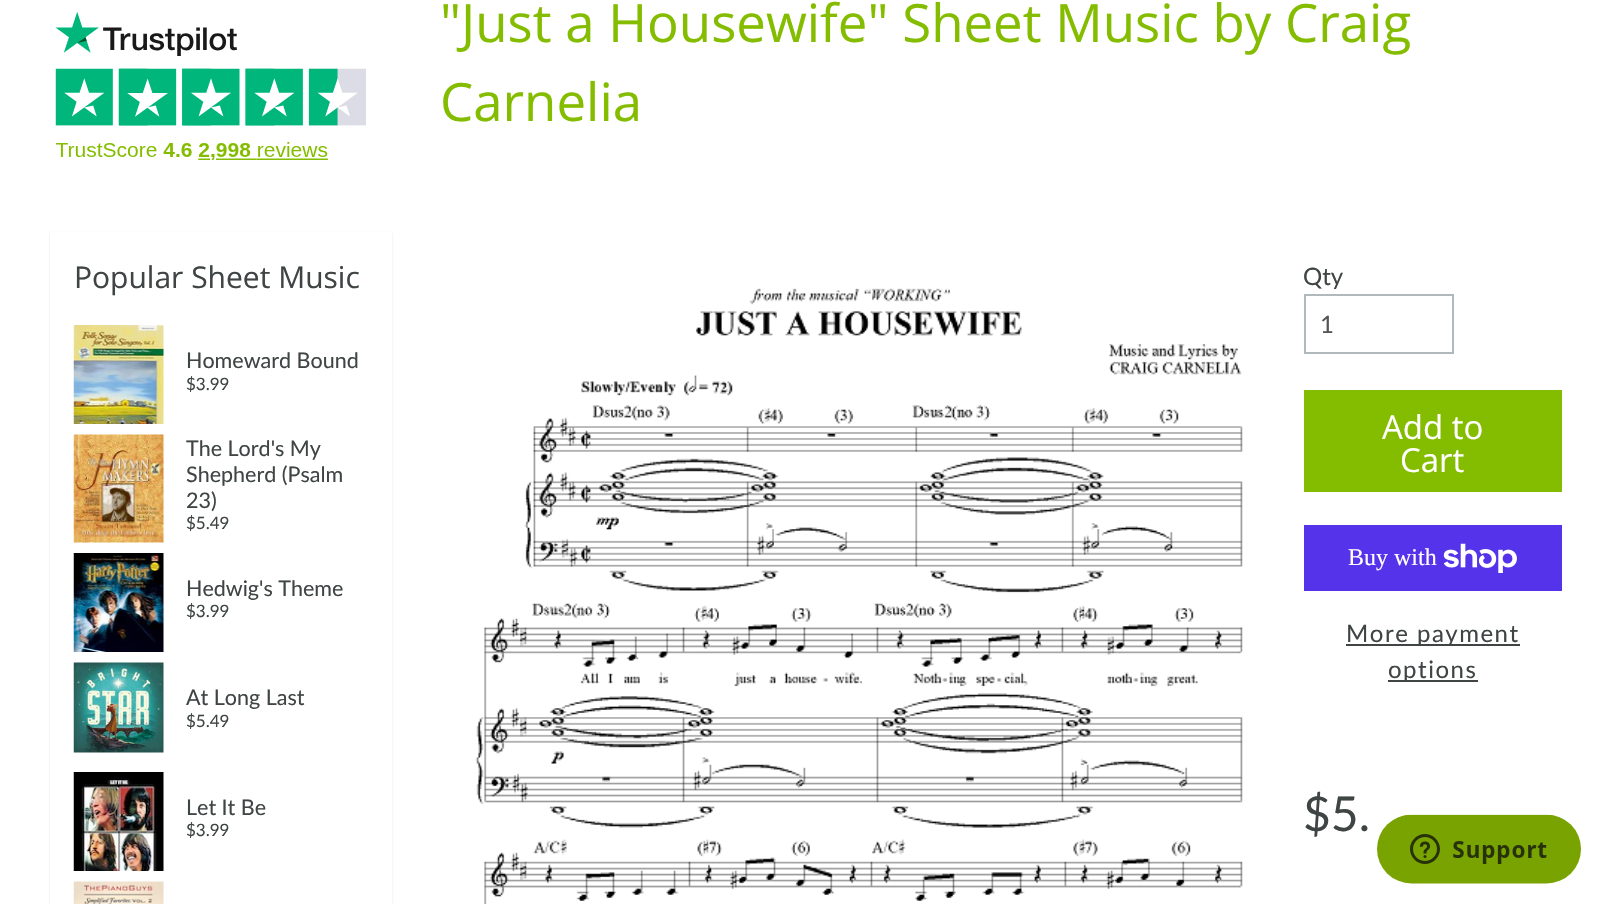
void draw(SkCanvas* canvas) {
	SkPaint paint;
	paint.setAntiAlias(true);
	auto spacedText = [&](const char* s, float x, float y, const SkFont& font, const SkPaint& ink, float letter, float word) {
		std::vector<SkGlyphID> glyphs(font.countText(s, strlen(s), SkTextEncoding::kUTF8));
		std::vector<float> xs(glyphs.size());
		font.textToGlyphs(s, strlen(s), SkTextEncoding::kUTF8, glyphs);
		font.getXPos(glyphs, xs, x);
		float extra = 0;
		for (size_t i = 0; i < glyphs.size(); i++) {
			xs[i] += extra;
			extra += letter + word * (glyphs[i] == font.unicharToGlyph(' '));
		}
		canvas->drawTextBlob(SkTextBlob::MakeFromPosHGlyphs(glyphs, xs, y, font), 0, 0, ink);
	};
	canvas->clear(0xffffffff);
	canvas->drawImageRect(SkImages::DeferredFromEncodedData(SkData::MakeFromFileName("img1.png")), SkRect::MakeXYWH(55, 12, 311, 148), SkSamplingOptions());
	paint.setColor(0x1a000000);
	paint.setMaskFilter(SkMaskFilter::MakeBlur(kNormal_SkBlurStyle, 1));
	canvas->drawRect(SkRect::MakeXYWH(50, 233, 342, 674), paint);
	paint.setMaskFilter(nullptr);
	paint.setColor(0xffffffff);
	canvas->drawRect(SkRect::MakeXYWH(50, 232, 342, 672), paint);
	SkFont f1(fontMgr->matchFamilyStyle("Open Sans", SkFontStyle::Normal()), 30);
	f1.setSubpixel(true);
	paint.setColor(0xff3f4444);
	canvas->drawString("Popular Sheet Music", 74, 288, f1, paint);
	canvas->drawImageRect(SkImages::DeferredFromEncodedData(SkData::MakeFromFileName("img2.png")), SkRect::MakeXYWH(73, 325, 91, 99), SkSamplingOptions());
	SkFont f2(fontMgr->matchFamilyStyle("Lato", SkFontStyle::Normal()), 21.5);
	f2.setSubpixel(true);
	canvas->drawString("Homeward Bound", 186, 368, f2, paint);
	SkFont f3(fontMgr->matchFamilyStyle("Lato", SkFontStyle::Normal()), 17);
	f3.setSubpixel(true);
	canvas->drawString("$3.99", 186, 390, f3, paint);
	canvas->drawImageRect(SkImages::DeferredFromEncodedData(SkData::MakeFromFileName("img3.png")), SkRect::MakeXYWH(73, 434, 91, 109), SkSamplingOptions());
	canvas->drawString("The Lord's My", 186, 456, f2, paint);
	canvas->drawString("Shepherd (Psalm", 186, 482, f2, paint);
	canvas->drawString("23)", 186, 508, f2, paint);
	canvas->drawString("$5.49", 186, 529, f3, paint);
	canvas->drawImageRect(SkImages::DeferredFromEncodedData(SkData::MakeFromFileName("img4.png")), SkRect::MakeXYWH(73, 553, 91, 99), SkSamplingOptions());
	canvas->drawString("Hedwig's Theme", 186, 596, f2, paint);
	canvas->drawString("$3.99", 186, 617, f3, paint);
	canvas->drawImageRect(SkImages::DeferredFromEncodedData(SkData::MakeFromFileName("img5.png")), SkRect::MakeXYWH(73, 662, 91, 91), SkSamplingOptions());
	canvas->drawString("At Long Last", 186, 705, f2, paint);
	canvas->drawString("$5.49", 186, 727, f3, paint);
	canvas->drawImageRect(SkImages::DeferredFromEncodedData(SkData::MakeFromFileName("img6.png")), SkRect::MakeXYWH(73, 772, 91, 99), SkSamplingOptions());
	canvas->drawString("Let It Be", 186, 815, f2, paint);
	canvas->drawString("$3.99", 186, 836, f3, paint);
	canvas->drawImageRect(SkImages::DeferredFromEncodedData(SkData::MakeFromFileName("img7.png")), SkRect::MakeXYWH(73, 881, 91, 23), SkSamplingOptions());
	SkFont f4(fontMgr->matchFamilyStyle("Open Sans", SkFontStyle::Normal()), 52.75);
	f4.setSubpixel(true);
	paint.setColor(0xff84bd00);
	canvas->drawString("\"Just a Housewife\" Sheet Music by", 440, 42, f4, paint);
	canvas->drawString("Craig", 1285, 42, f4, paint);
	canvas->drawString("Carnelia", 440, 121, f4, paint);
	canvas->drawImageRect(SkImages::DeferredFromEncodedData(SkData::MakeFromFileName("img8.png")), SkRect::MakeXYWH(475, 288, 768, 616), SkSamplingOptions());
	SkFont f5(fontMgr->matchFamilyStyle("Lato", SkFontStyle::Normal()), 24);
	f5.setSubpixel(true);
	paint.setColor(0xff3f4444);
	canvas->drawString("Qty", 1303, 285, f5, paint);
	paint.setStroke(true);
	paint.setStrokeWidth(2);
	paint.setColor(0xffb2b9bd);
	canvas->drawRect(SkRect::MakeXYWH(1305, 295, 148, 58), paint);
	paint.setStroke(false);
	paint.setColor(0xff555555);
	canvas->drawString("1", 1320, 333, f5, paint);
	paint.setColor(0xff84bd00);
	canvas->drawRect(SkRect::MakeXYWH(1304, 390, 258, 102), paint);
	SkFont f6(fontMgr->matchFamilyStyle("Open Sans", SkFontStyle::Normal()), 33);
	f6.setSubpixel(true);
	paint.setColor(0xffffffff);
	canvas->drawString("Add to", 1382, 439, f6, paint);
	canvas->drawString("Cart", 1400, 472, f6, paint);
	paint.setColor(0xff5433eb);
	canvas->drawRect(SkRect::MakeXYWH(1304, 525, 258, 66), paint);
	SkFont f7(fontMgr->matchFamilyStyle("Liberation Serif", SkFontStyle::Normal()), 24);
	f7.setSubpixel(true);
	paint.setColor(0xffffffff);
	canvas->drawString("Buy with", 1348, 565, f7, paint);
	canvas->drawImageRect(SkImages::DeferredFromEncodedData(SkData::MakeFromFileName("img9.png")), SkRect::MakeXYWH(1443, 543, 74, 30), SkSamplingOptions());
	paint.setColor(0xff3f4444);
	canvas->drawRect(SkRect::MakeXYWH(1346, 644, 174, 2), paint);
	spacedText("More payment", 1346, 642, f5, paint, 1.5, 0);
	canvas->drawRect(SkRect::MakeXYWH(1388, 680, 90, 2), paint);
	spacedText("options", 1388, 678, f5, paint, 1.5, 0);
	SkFont f8(fontMgr->matchFamilyStyle("Lato", SkFontStyle::Normal()), 48);
	f8.setSubpixel(true);
	canvas->drawString("$5.", 1303, 831, f8, paint);
	canvas->drawImageRect(SkImages::DeferredFromEncodedData(SkData::MakeFromFileName("img10.png")), SkRect::MakeXYWH(1504, 796, 42, 19), SkSamplingOptions());
	canvas->drawImageRect(SkImages::DeferredFromEncodedData(SkData::MakeFromFileName("img11.png")), SkRect::MakeXYWH(1377, 814, 204, 70), SkSamplingOptions());
}
